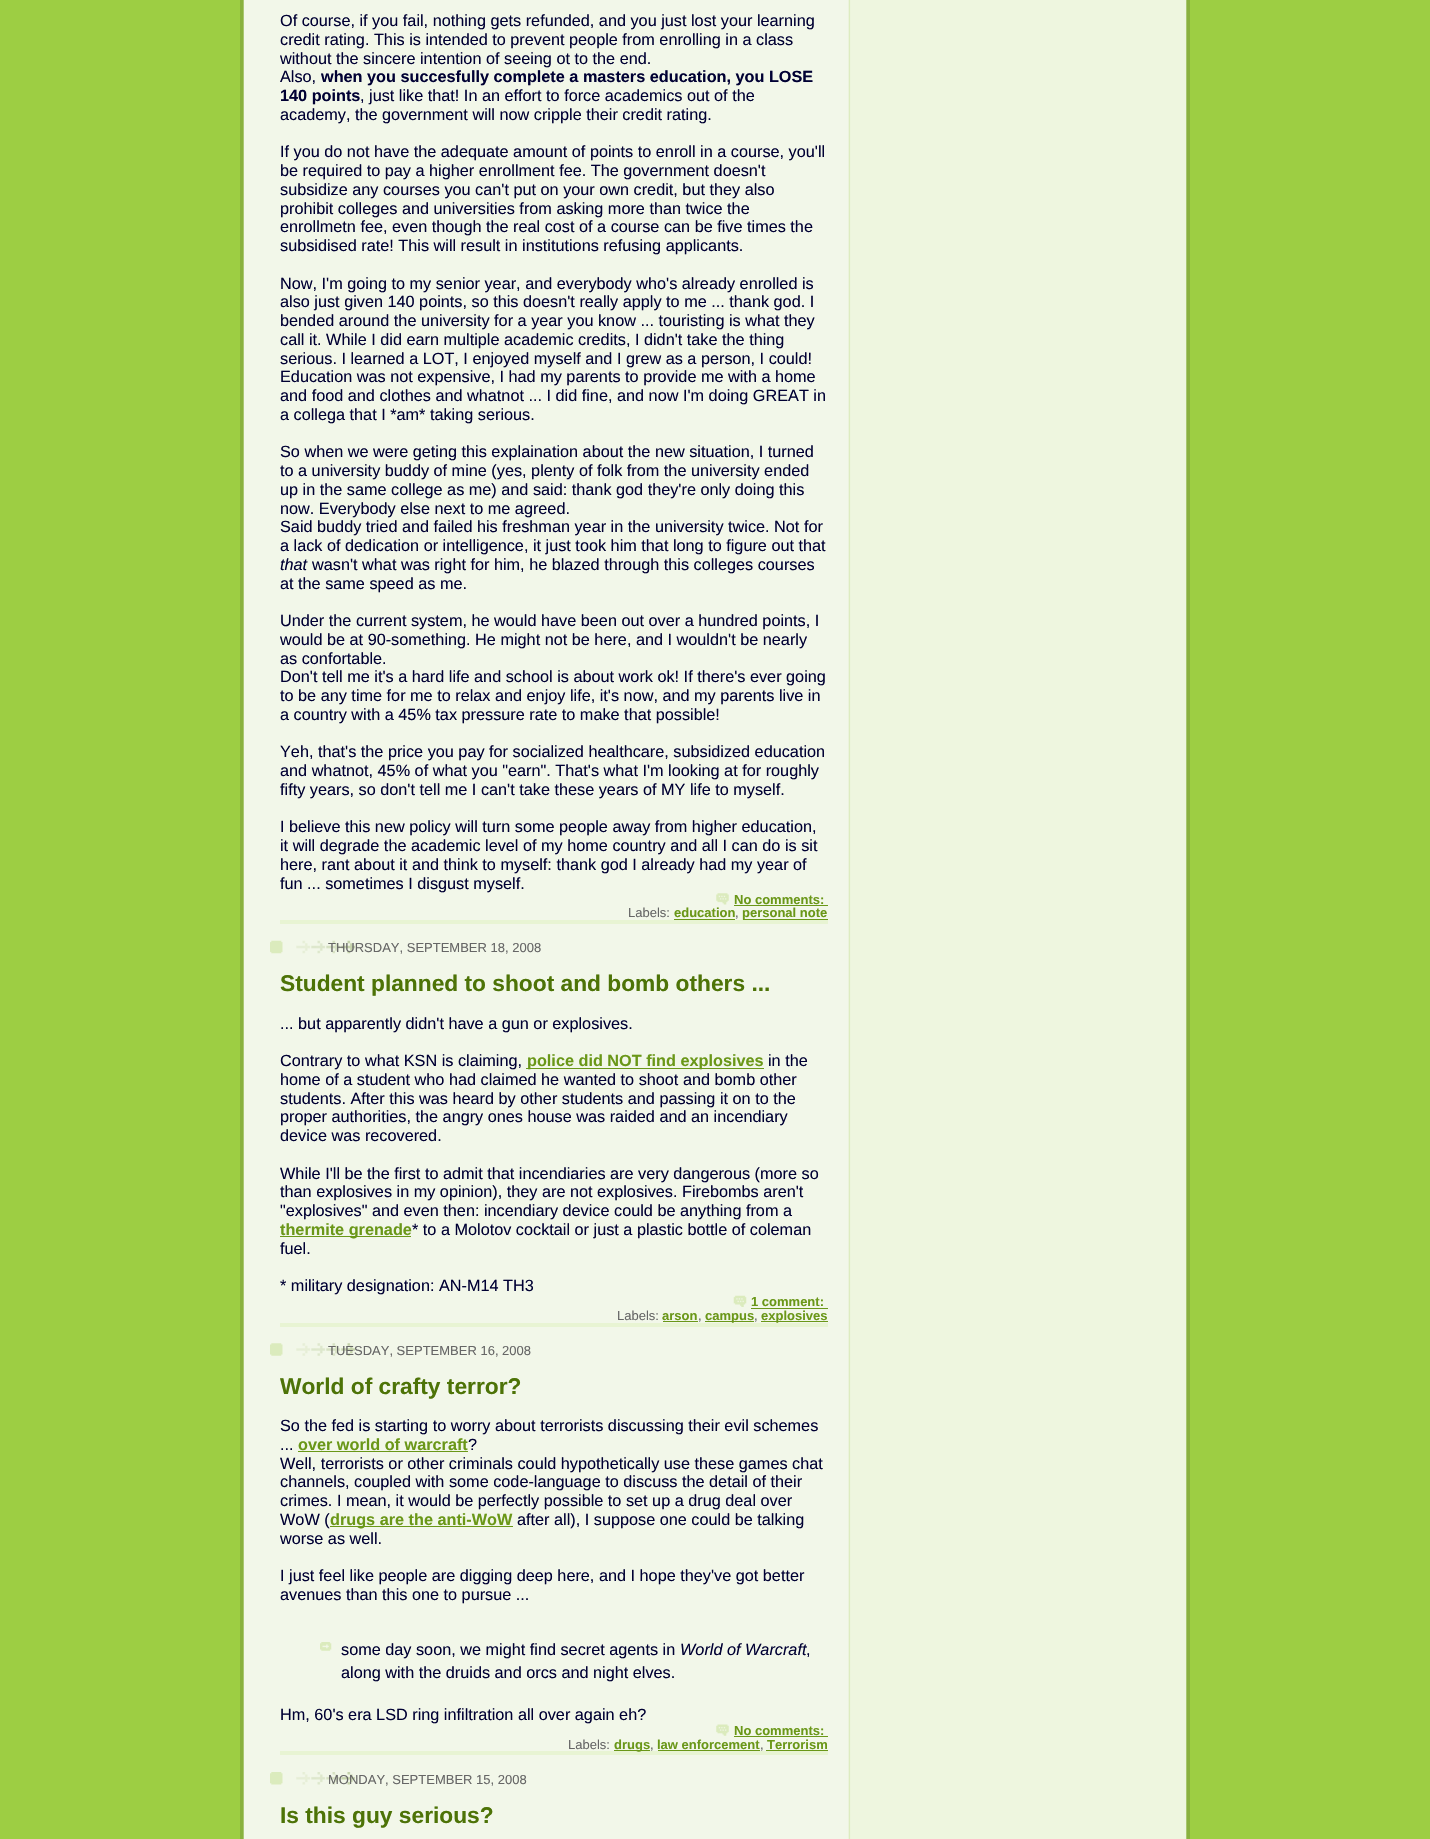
void draw(SkCanvas* canvas) {
	SkPaint paint;
	paint.setAntiAlias(true);
	canvas->clear(0xff9dce43);
	canvas->drawImageRect(SkImages::DeferredFromEncodedData(SkData::MakeFromFileName("img1.png")), SkRect::MakeXYWH(240, 0, 950, 1839), SkSamplingOptions());
	paint.setColor(0xffe8f4d3);
	canvas->drawRect(SkRect::MakeXYWH(280, 920, 548, 4), paint);
	SkFont f1(fontMgr->matchFamilyStyle("Liberation Sans", SkFontStyle::Normal()), 16.25);
	f1.setSubpixel(true);
	paint.setColor(0xff000033);
	canvas->drawString("Of course, if you fail, nothing gets refunded, and you just lost your learning", 280, 26, f1, paint);
	canvas->drawString("credit rating. This is intended to prevent people from enrolling in a class", 280, 45, f1, paint);
	canvas->drawString("without the sincere intention of seeing ot to the end.", 280, 64, f1, paint);
	canvas->drawString("Also,", 280, 82, f1, paint);
	SkFont f2(fontMgr->matchFamilyStyle("Liberation Sans", SkFontStyle::Bold()), 16.25);
	f2.setSubpixel(true);
	canvas->drawString("when you succesfully complete a masters education, you LOSE", 321, 82, f2, paint);
	canvas->drawString("140 points", 280, 101, f2, paint);
	canvas->drawString(", just like that! In an effort to force academics out of the", 360, 101, f1, paint);
	canvas->drawString("academy, the government will now cripple their credit rating.", 280, 120, f1, paint);
	canvas->drawString("If you do not have the adequate amount of points to enroll in a course, you'll", 280, 157, f1, paint);
	canvas->drawString("be required to pay a higher enrollment fee. The government doesn't", 280, 176, f1, paint);
	canvas->drawString("subsidize any courses you can't put on your own credit, but they also", 280, 195, f1, paint);
	canvas->drawString("prohibit colleges and universities from asking more than twice the", 280, 214, f1, paint);
	canvas->drawString("enrollmetn fee, even though the real cost of a course can be five times the", 280, 232, f1, paint);
	canvas->drawString("subsidised rate! This will result in institutions refusing applicants.", 280, 251, f1, paint);
	canvas->drawString("Now, I'm going to my senior year, and everybody who's already enrolled is", 280, 289, f1, paint);
	canvas->drawString("also just given 140 points, so this doesn't really apply to me ... thank god. I", 280, 307, f1, paint);
	canvas->drawString("bended around the university for a year you know ... touristing is what they", 280, 326, f1, paint);
	canvas->drawString("call it. While I did earn multiple academic credits, I didn't take the thing", 280, 345, f1, paint);
	canvas->drawString("serious. I learned a LOT, I enjoyed myself and I grew as a person, I could!", 280, 364, f1, paint);
	canvas->drawString("Education was not expensive, I had my parents to provide me with a home", 280, 382, f1, paint);
	canvas->drawString("and food and clothes and whatnot ... I did fine, and now I'm doing GREAT in", 280, 401, f1, paint);
	canvas->drawString("a collega that I *am* taking serious.", 280, 420, f1, paint);
	canvas->drawString("So when we were geting this explaination about the new situation, I turned", 280, 457, f1, paint);
	canvas->drawString("to a university buddy of mine (yes, plenty of folk from the university ended", 280, 476, f1, paint);
	canvas->drawString("up in the same college as me) and said: thank god they're only doing this", 280, 495, f1, paint);
	canvas->drawString("now. Everybody else next to me agreed.", 280, 514, f1, paint);
	canvas->drawString("Said buddy tried and failed his freshman year in the university twice. Not for", 280, 532, f1, paint);
	canvas->drawString("a lack of dedication or intelligence, it just took him that long to figure out that", 280, 551, f1, paint);
	SkFont f3(fontMgr->matchFamilyStyle("Liberation Sans", SkFontStyle::Italic()), 16.25);
	f3.setSubpixel(true);
	canvas->drawString("that", 280, 570, f3, paint);
	canvas->drawString("wasn't what was right for him, he blazed through this colleges courses", 312, 570, f1, paint);
	canvas->drawString("at the same speed as me.", 280, 589, f1, paint);
	canvas->drawString("Under the current system, he would have been out over a hundred points, I", 280, 626, f1, paint);
	canvas->drawString("would be at 90-something. He might not be here, and I wouldn't be nearly", 280, 645, f1, paint);
	canvas->drawString("as confortable.", 280, 664, f1, paint);
	canvas->drawString("Don't tell me it's a hard life and school is about work ok! If there's ever going", 280, 682, f1, paint);
	canvas->drawString("to be any time for me to relax and enjoy life, it's now, and my parents live in", 280, 701, f1, paint);
	canvas->drawString("a country with a 45% tax pressure rate to make that possible!", 280, 720, f1, paint);
	canvas->drawString("Yeh, that's the price you pay for socialized healthcare, subsidized education", 280, 757, f1, paint);
	canvas->drawString("and whatnot, 45% of what you \"earn\". That's what I'm looking at for roughly", 280, 776, f1, paint);
	canvas->drawString("fifty years, so don't tell me I can't take these years of MY life to myself.", 280, 795, f1, paint);
	canvas->drawString("I believe this new policy will turn some people away from higher education,", 280, 832, f1, paint);
	canvas->drawString("it will degrade the academic level of my home country and all I can do is sit", 280, 851, f1, paint);
	canvas->drawString("here, rant about it and think to myself: thank god I already had my year of", 280, 870, f1, paint);
	canvas->drawString("fun ... sometimes I disgust myself.", 280, 889, f1, paint);
	canvas->drawImageRect(SkImages::DeferredFromEncodedData(SkData::MakeFromFileName("img2.png")), SkRect::MakeXYWH(716, 893, 13, 12), SkSamplingOptions());
	SkFont f4(fontMgr->matchFamilyStyle("Liberation Sans", SkFontStyle::Bold()), 13);
	f4.setSubpixel(true);
	paint.setColor(0xff6a9718);
	canvas->drawString("No comments:", 734, 904, f4, paint);
	canvas->drawRect(SkRect::MakeXYWH(734, 905, 94, 1), paint);
	SkFont f5(fontMgr->matchFamilyStyle("Liberation Sans", SkFontStyle::Normal()), 13);
	f5.setSubpixel(true);
	paint.setColor(0xff666666);
	canvas->drawString("Labels:", 628, 917, f5, paint);
	paint.setColor(0xff6a9718);
	canvas->drawString("education", 674, 917, f4, paint);
	paint.setColor(0xff666666);
	canvas->drawString(",", 735, 917, f5, paint);
	paint.setColor(0xff6a9718);
	canvas->drawRect(SkRect::MakeXYWH(674, 919, 61, 1), paint);
	canvas->drawRect(SkRect::MakeXYWH(743, 919, 85, 1), paint);
	canvas->drawString("personal note", 742, 917, f4, paint);
	canvas->drawImageRect(SkImages::DeferredFromEncodedData(SkData::MakeFromFileName("img3.png")), SkRect::MakeXYWH(270, 940, 13, 14), SkSamplingOptions());
	canvas->drawImageRect(SkImages::DeferredFromEncodedData(SkData::MakeFromFileName("img4.png")), SkRect::MakeXYWH(296, 940, 59, 14), SkSamplingOptions());
	paint.setColor(0xff666666);
	canvas->drawString("THURSDAY, SEPTEMBER 18, 2008", 328, 952, f5, paint);
	paint.setColor(0xffe8f4d3);
	canvas->drawRect(SkRect::MakeXYWH(280, 1323, 548, 4), paint);
	SkFont f6(fontMgr->matchFamilyStyle("Liberation Sans", SkFontStyle::Bold()), 22.75);
	f6.setSubpixel(true);
	paint.setColor(0xff4d7307);
	canvas->drawString("Student planned to shoot and bomb others ...", 280, 991, f6, paint);
	paint.setColor(0xff000033);
	canvas->drawString("... but apparently didn't have a gun or explosives.", 280, 1029, f1, paint);
	canvas->drawString("Contrary to what KSN is claiming,", 280, 1066, f1, paint);
	paint.setColor(0xff6a9718);
	canvas->drawRect(SkRect::MakeXYWH(526, 1068, 238, 1), paint);
	canvas->drawString("police did NOT find explosives", 527, 1066, f2, paint);
	paint.setColor(0xff000033);
	canvas->drawString("in the", 768, 1066, f1, paint);
	canvas->drawString("home of a student who had claimed he wanted to shoot and bomb other", 280, 1085, f1, paint);
	canvas->drawString("students. After this was heard by other students and passing it on to the", 280, 1104, f1, paint);
	canvas->drawString("proper authorities, the angry ones house was raided and an incendiary", 280, 1122, f1, paint);
	canvas->drawString("device was recovered.", 280, 1141, f1, paint);
	canvas->drawString("While I'll be the first to admit that incendiaries are very dangerous (more so", 280, 1179, f1, paint);
	canvas->drawString("than explosives in my opinion), they are not explosives. Firebombs aren't", 280, 1197, f1, paint);
	canvas->drawString("\"explosives\" and even then: incendiary device could be anything from a", 280, 1216, f1, paint);
	paint.setColor(0xff6a9718);
	canvas->drawRect(SkRect::MakeXYWH(280, 1236, 131, 1), paint);
	canvas->drawString("thermite grenade", 280, 1235, f2, paint);
	paint.setColor(0xff000033);
	canvas->drawString("* to a Molotov cocktail or just a plastic bottle of coleman", 412, 1235, f1, paint);
	canvas->drawString("fuel.", 280, 1254, f1, paint);
	canvas->drawString("* military designation: AN-M14 TH3", 280, 1291, f1, paint);
	canvas->drawImageRect(SkImages::DeferredFromEncodedData(SkData::MakeFromFileName("img5.png")), SkRect::MakeXYWH(733, 1295, 14, 12), SkSamplingOptions());
	paint.setColor(0xff6a9718);
	canvas->drawString("1 comment:", 751, 1306, f4, paint);
	canvas->drawRect(SkRect::MakeXYWH(751, 1308, 77, 1), paint);
	paint.setColor(0xff666666);
	canvas->drawString("Labels:", 617, 1320, f5, paint);
	paint.setColor(0xff6a9718);
	canvas->drawString("arson", 662, 1320, f4, paint);
	paint.setColor(0xff666666);
	canvas->drawString(",", 698, 1320, f5, paint);
	paint.setColor(0xff6a9718);
	canvas->drawRect(SkRect::MakeXYWH(663, 1321, 35, 1), paint);
	canvas->drawRect(SkRect::MakeXYWH(705, 1321, 49, 1), paint);
	canvas->drawString("campus", 705, 1320, f4, paint);
	paint.setColor(0xff666666);
	canvas->drawString(",", 754, 1320, f5, paint);
	paint.setColor(0xff6a9718);
	canvas->drawRect(SkRect::MakeXYWH(761, 1321, 67, 1), paint);
	canvas->drawString("explosives", 761, 1320, f4, paint);
	canvas->drawImageRect(SkImages::DeferredFromEncodedData(SkData::MakeFromFileName("img6.png")), SkRect::MakeXYWH(270, 1343, 13, 13), SkSamplingOptions());
	canvas->drawImageRect(SkImages::DeferredFromEncodedData(SkData::MakeFromFileName("img7.png")), SkRect::MakeXYWH(296, 1343, 59, 13), SkSamplingOptions());
	paint.setColor(0xff666666);
	canvas->drawString("TUESDAY, SEPTEMBER 16, 2008", 328, 1355, f5, paint);
	paint.setColor(0xffe8f4d3);
	canvas->drawRect(SkRect::MakeXYWH(280, 1751, 548, 4), paint);
	paint.setColor(0xff4d7307);
	canvas->drawString("World of crafty terror?", 280, 1394, f6, paint);
	paint.setColor(0xff000033);
	canvas->drawString("So the fed is starting to worry about terrorists discussing their evil schemes", 280, 1431, f1, paint);
	canvas->drawString("...", 280, 1450, f1, paint);
	paint.setColor(0xff6a9718);
	canvas->drawString("over world of warcraft", 298, 1450, f2, paint);
	canvas->drawRect(SkRect::MakeXYWH(298, 1451, 170, 1), paint);
	paint.setColor(0xff000033);
	canvas->drawString("?", 468, 1450, f1, paint);
	canvas->drawString("Well, terrorists or other criminals could hypothetically use these games chat", 280, 1469, f1, paint);
	canvas->drawString("channels, coupled with some code-language to discuss the detail of their", 280, 1487, f1, paint);
	canvas->drawString("crimes. I mean, it would be perfectly possible to set up a drug deal over", 280, 1506, f1, paint);
	canvas->drawString("WoW (", 280, 1525, f1, paint);
	paint.setColor(0xff6a9718);
	canvas->drawRect(SkRect::MakeXYWH(330, 1526, 183, 1), paint);
	canvas->drawString("drugs are the anti-WoW", 330, 1525, f2, paint);
	paint.setColor(0xff000033);
	canvas->drawString("after all), I suppose one could be talking", 517, 1525, f1, paint);
	canvas->drawString("worse as well.", 280, 1544, f1, paint);
	canvas->drawString("I just feel like people are digging deep here, and I hope they've got better", 280, 1581, f1, paint);
	canvas->drawString("avenues than this one to pursue ...", 280, 1600, f1, paint);
	canvas->drawImageRect(SkImages::DeferredFromEncodedData(SkData::MakeFromFileName("img8.png")), SkRect::MakeXYWH(320, 1642, 12, 9), SkSamplingOptions());
	canvas->drawString("some day soon, we might find secret agents in", 341, 1655, f1, paint);
	canvas->drawString("World of Warcraft", 680, 1655, f3, paint);
	canvas->drawString(",", 806, 1655, f1, paint);
	canvas->drawString("along with the druids and orcs and night elves.", 341, 1678, f1, paint);
	canvas->drawString("Hm, 60's era LSD ring infiltration all over again eh?", 280, 1720, f1, paint);
	canvas->drawImageRect(SkImages::DeferredFromEncodedData(SkData::MakeFromFileName("img9.png")), SkRect::MakeXYWH(716, 1724, 13, 12), SkSamplingOptions());
	paint.setColor(0xff6a9718);
	canvas->drawString("No comments:", 734, 1735, f4, paint);
	canvas->drawRect(SkRect::MakeXYWH(734, 1736, 94, 1), paint);
	paint.setColor(0xff666666);
	canvas->drawString("Labels:", 568, 1749, f5, paint);
	paint.setColor(0xff6a9718);
	canvas->drawRect(SkRect::MakeXYWH(614, 1750, 36, 1), paint);
	canvas->drawString("drugs", 614, 1749, f4, paint);
	paint.setColor(0xff666666);
	canvas->drawString(",", 650, 1749, f5, paint);
	paint.setColor(0xff6a9718);
	canvas->drawString("law enforcement", 657, 1749, f4, paint);
	paint.setColor(0xff666666);
	canvas->drawString(",", 760, 1749, f5, paint);
	paint.setColor(0xff6a9718);
	canvas->drawRect(SkRect::MakeXYWH(658, 1750, 102, 1), paint);
	canvas->drawRect(SkRect::MakeXYWH(766, 1750, 62, 1), paint);
	canvas->drawString("Terrorism", 767, 1749, f4, paint);
	canvas->drawImageRect(SkImages::DeferredFromEncodedData(SkData::MakeFromFileName("img10.png")), SkRect::MakeXYWH(270, 1772, 13, 13), SkSamplingOptions());
	canvas->drawImageRect(SkImages::DeferredFromEncodedData(SkData::MakeFromFileName("img11.png")), SkRect::MakeXYWH(296, 1772, 59, 13), SkSamplingOptions());
	paint.setColor(0xff666666);
	canvas->drawString("MONDAY, SEPTEMBER 15, 2008", 328, 1784, f5, paint);
	paint.setColor(0xff4d7307);
	canvas->drawString("Is this guy serious?", 280, 1823, f6, paint);
}
